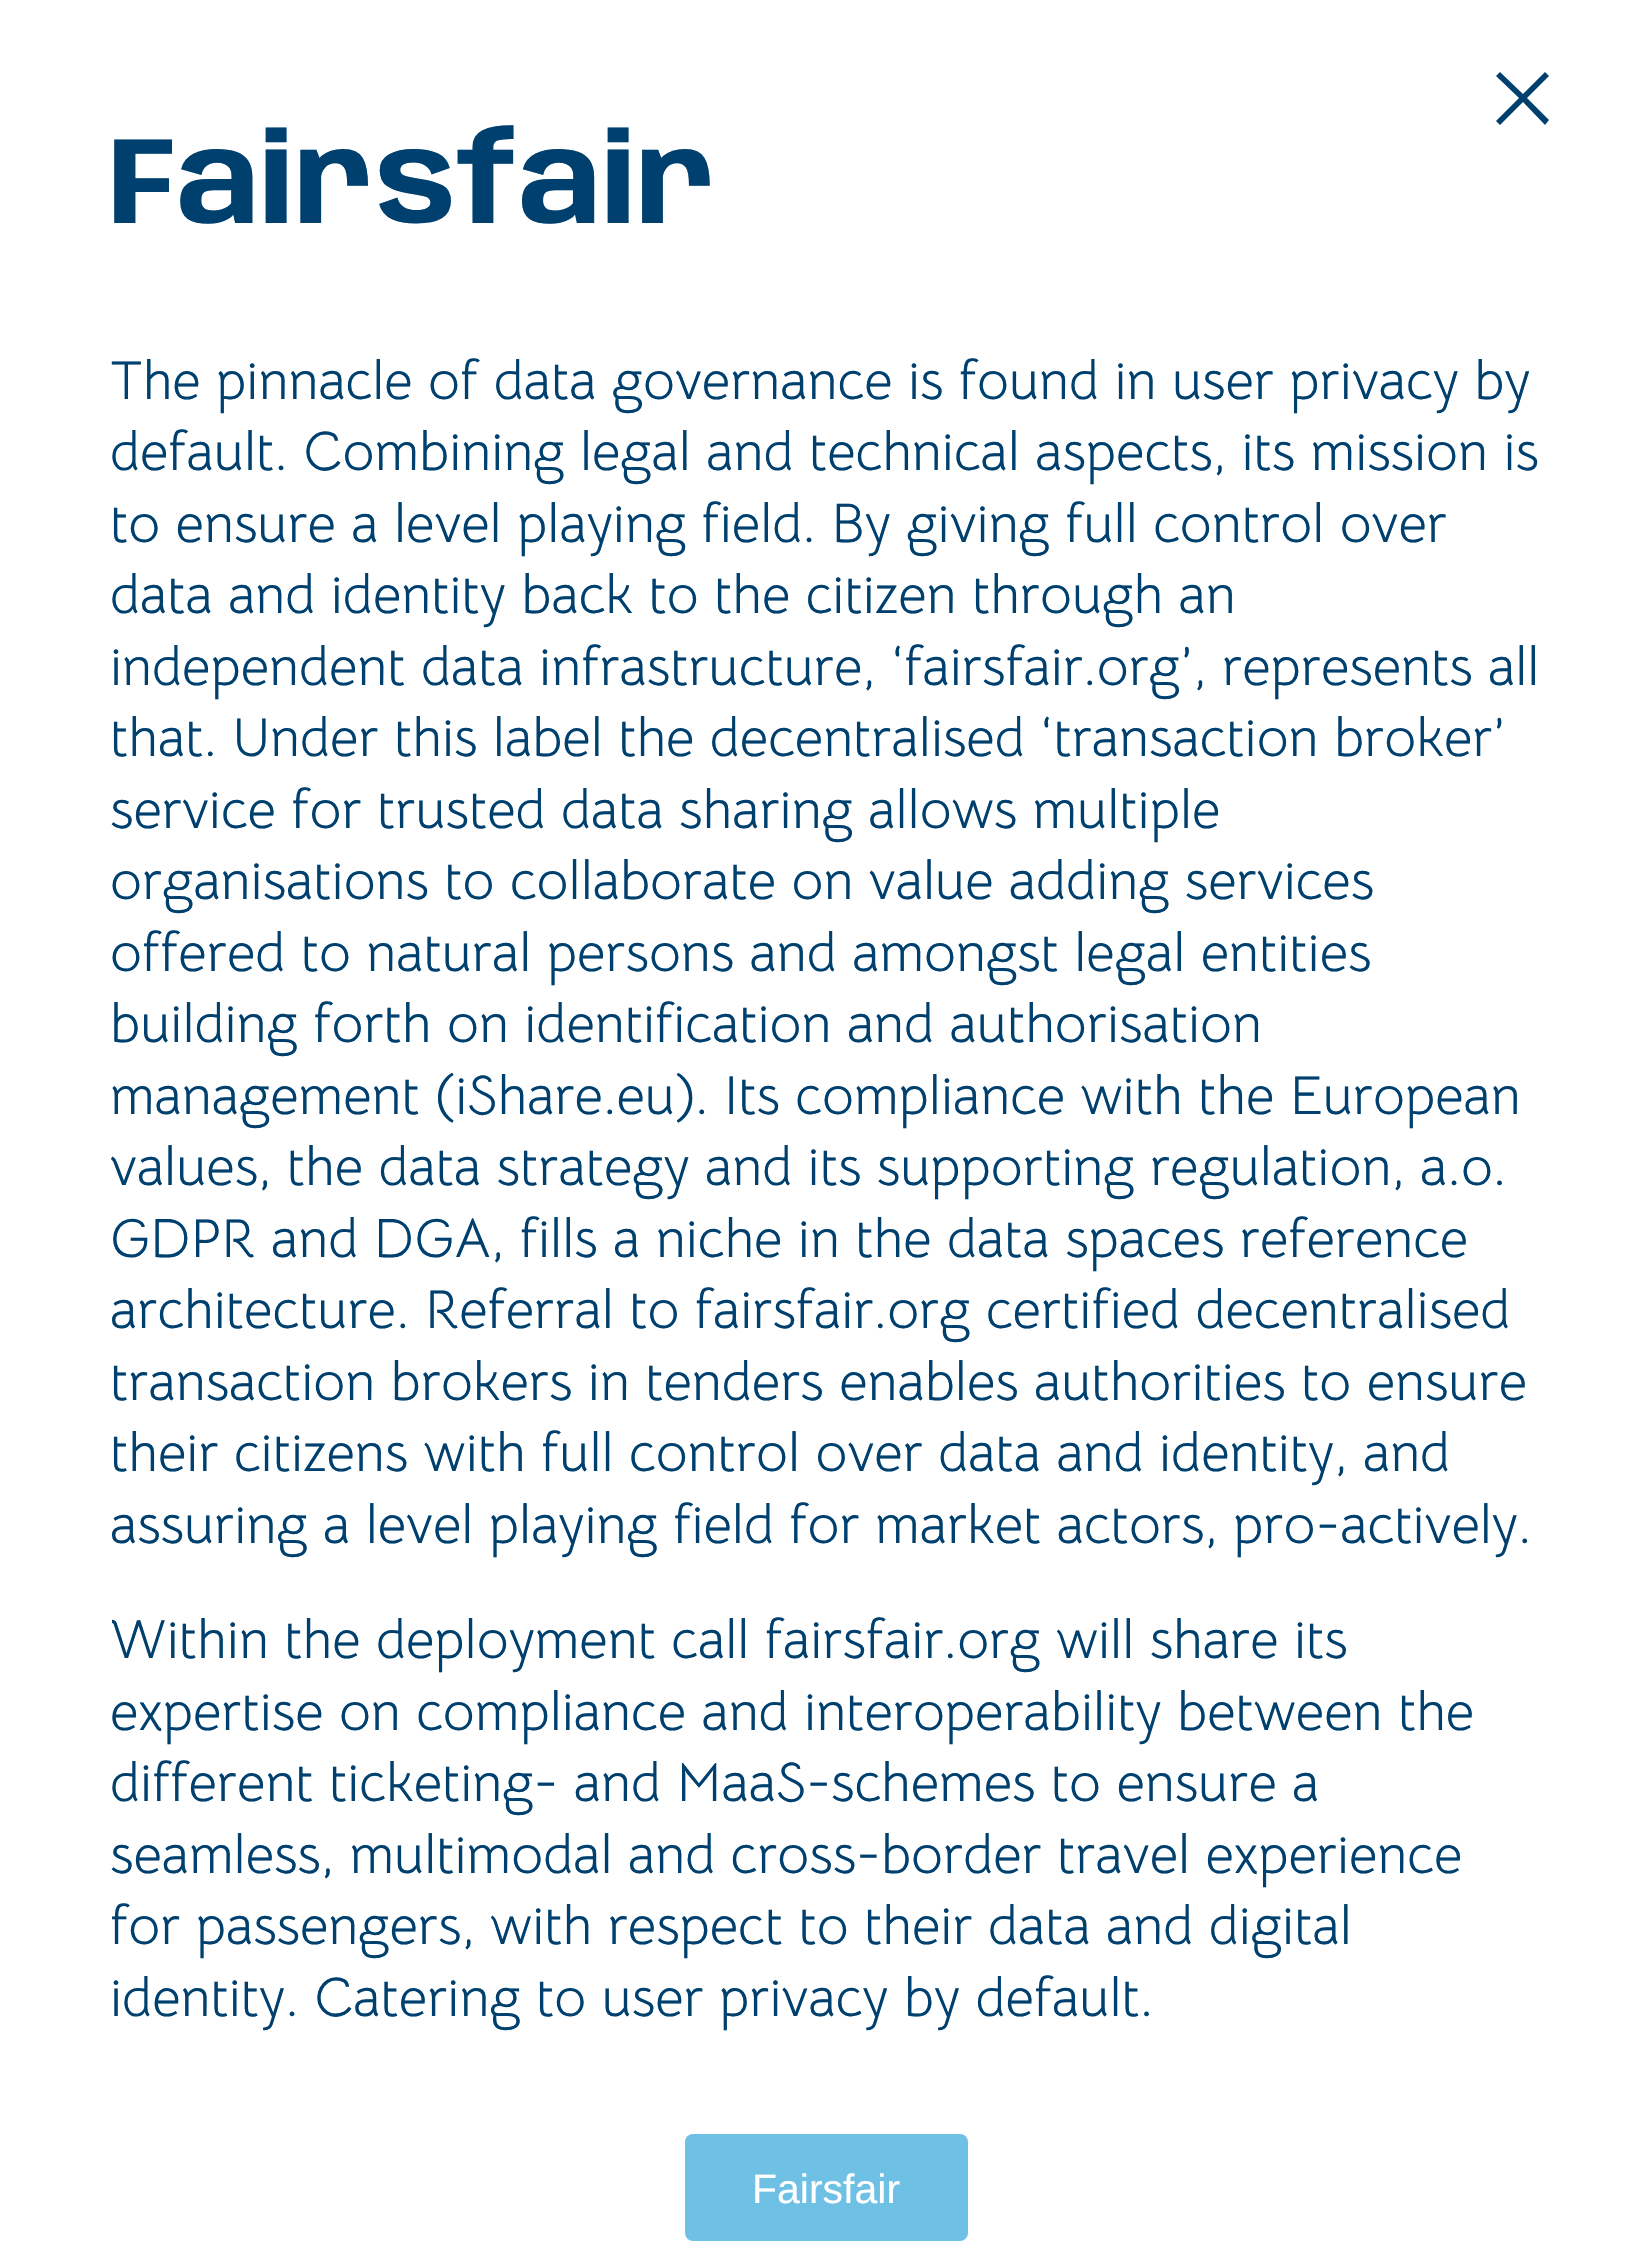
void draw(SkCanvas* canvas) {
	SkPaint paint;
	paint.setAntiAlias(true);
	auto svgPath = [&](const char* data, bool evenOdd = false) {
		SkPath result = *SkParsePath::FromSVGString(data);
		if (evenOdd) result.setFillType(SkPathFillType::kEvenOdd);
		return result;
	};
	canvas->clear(0xffffffff);
	paint.setColor(0xff00406f);
	canvas->drawPath(svgPath("M1523 102L1545 125L1549 120L1527 98L1549 76L1545 72L1523 94L1500 72L1496 76L1519 98L1496 121L1500 125Z"), paint);
	SkFont f1(fontMgr->matchFamilyStyle("Anybody", SkFontStyle::Bold()), 123.75);
	f1.setSubpixel(true);
	canvas->drawString("Fairsfair", 110, 223, f1, paint);
	SkFont f2(fontMgr->matchFamilyStyle("Bellota Text", SkFontStyle::Normal()), 55);
	f2.setSubpixel(true);
	canvas->drawString("The pinnacle of data governance is found in user privacy by", 110, 399, f2, paint);
	canvas->drawString("default. Combining legal and technical aspects, its mission is", 110, 470, f2, paint);
	canvas->drawString("to ensure a level playing field. By giving full control over", 110, 542, f2, paint);
	canvas->drawString("data and identity back to the citizen through an", 110, 613, f2, paint);
	canvas->drawString("independent data infrastructure, ‘fairsfair.org’, represents all", 110, 685, f2, paint);
	canvas->drawString("that. Under this label the decentralised ‘transaction broker’", 110, 756, f2, paint);
	canvas->drawString("service for trusted data sharing allows multiple", 110, 828, f2, paint);
	canvas->drawString("organisations to collaborate on value adding services", 110, 899, f2, paint);
	canvas->drawString("offered to natural persons and amongst legal entities", 110, 971, f2, paint);
	canvas->drawString("building forth on identification and authorisation", 110, 1042, f2, paint);
	canvas->drawString("management (iShare.eu). Its compliance with the European", 110, 1114, f2, paint);
	canvas->drawString("values, the data strategy and its supporting regulation, a.o.", 110, 1185, f2, paint);
	canvas->drawString("GDPR and DGA, fills a niche in the data spaces reference", 110, 1257, f2, paint);
	canvas->drawString("architecture. Referral to fairsfair.org certified decentralised", 110, 1328, f2, paint);
	canvas->drawString("transaction brokers in tenders enables authorities to ensure", 110, 1400, f2, paint);
	canvas->drawString("their citizens with full control over data and identity, and", 110, 1471, f2, paint);
	canvas->drawString("assuring a level playing field for market actors, pro-actively.", 110, 1543, f2, paint);
	canvas->drawString("Within the deployment call fairsfair.org will share its", 110, 1658, f2, paint);
	canvas->drawString("expertise on compliance and interoperability between the", 110, 1730, f2, paint);
	canvas->drawString("different ticketing- and MaaS-schemes to ensure a", 110, 1801, f2, paint);
	canvas->drawString("seamless, multimodal and cross-border travel experience", 110, 1873, f2, paint);
	canvas->drawString("for passengers, with respect to their data and digital", 110, 1944, f2, paint);
	canvas->drawString("identity. Catering to user privacy by default.", 110, 2016, f2, paint);
	paint.setColor(0xff6ec1e4);
	canvas->drawRoundRect(SkRect::MakeXYWH(685, 2134, 283, 107), 8, 8, paint);
	SkFont f3(fontMgr->matchFamilyStyle("Liberation Sans", SkFontStyle::Normal()), 41);
	f3.setSubpixel(true);
	paint.setColor(0xffffffff);
	canvas->drawString("Fairsfair", 752, 2203, f3, paint);
}
